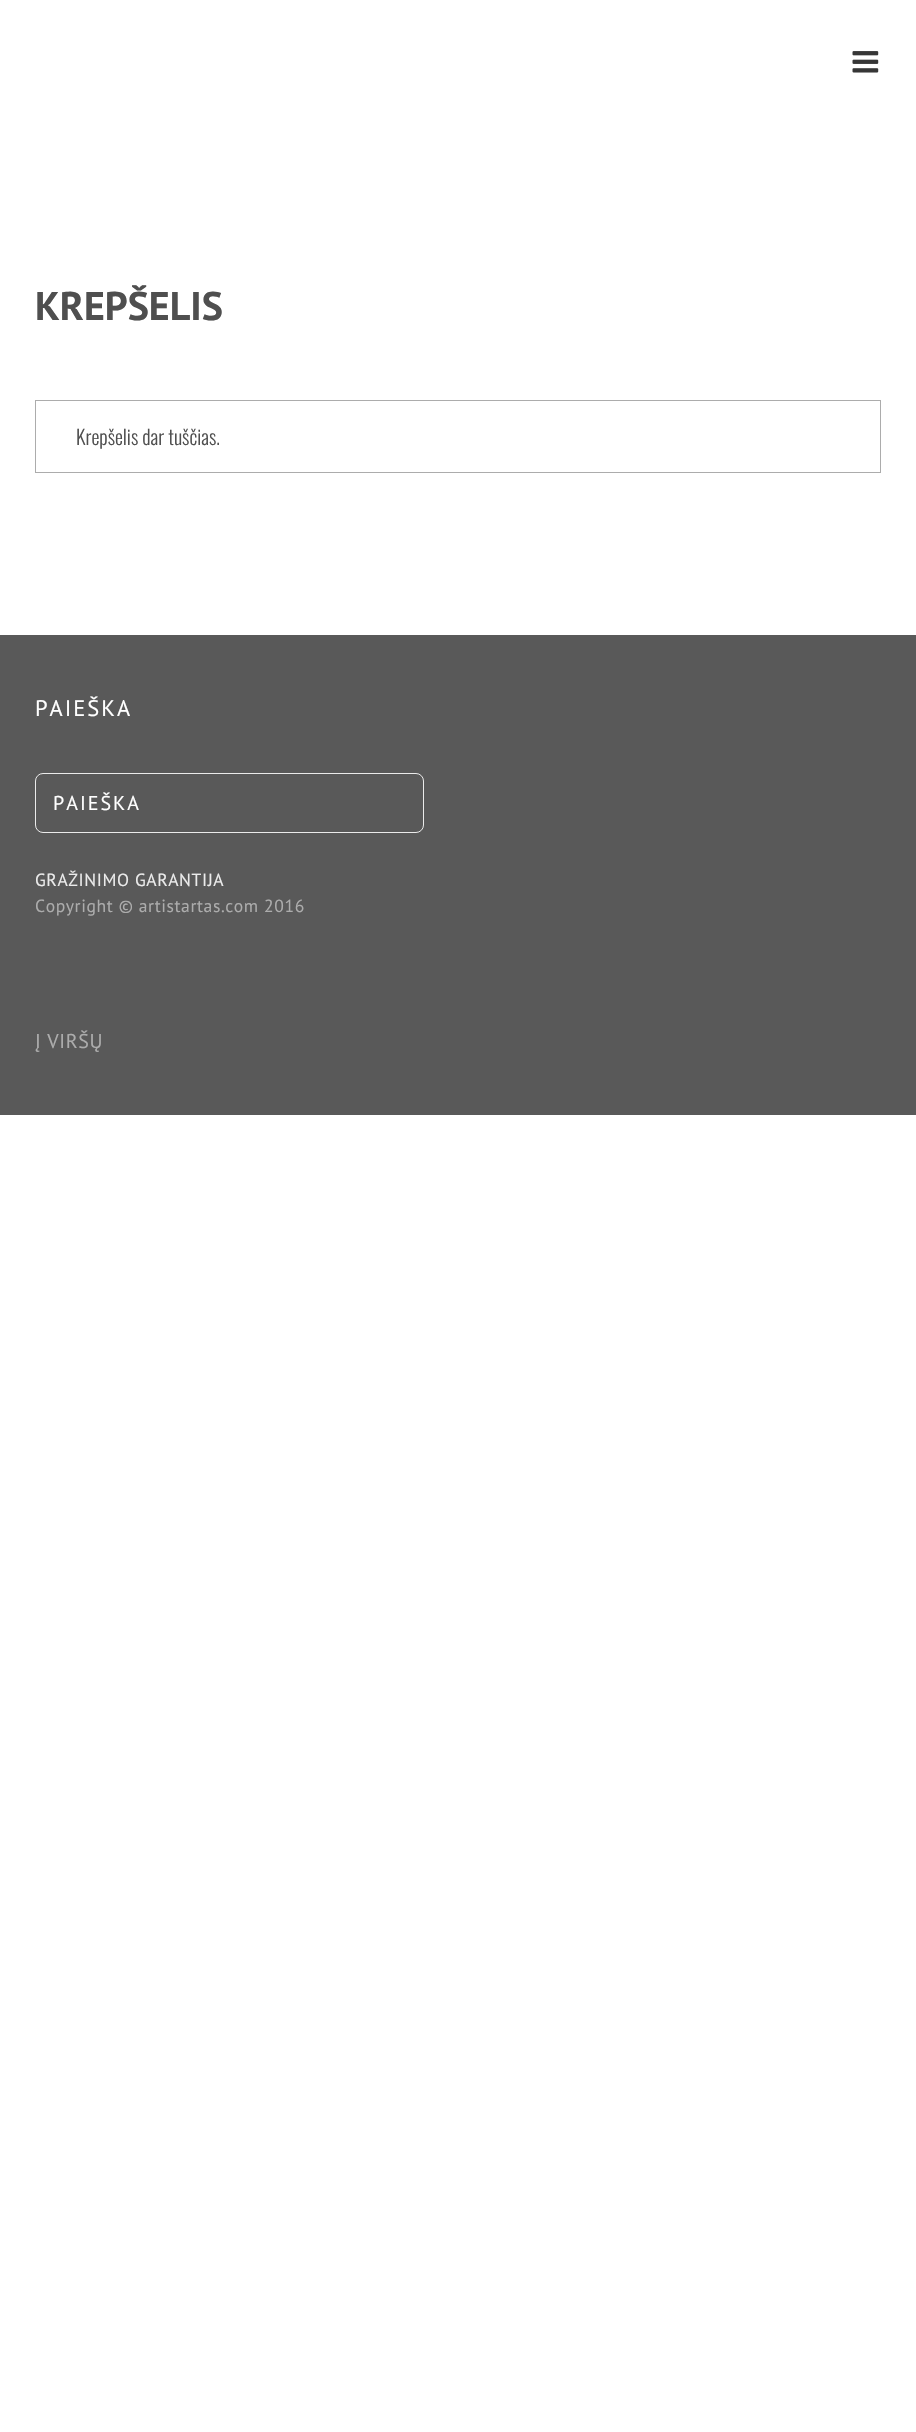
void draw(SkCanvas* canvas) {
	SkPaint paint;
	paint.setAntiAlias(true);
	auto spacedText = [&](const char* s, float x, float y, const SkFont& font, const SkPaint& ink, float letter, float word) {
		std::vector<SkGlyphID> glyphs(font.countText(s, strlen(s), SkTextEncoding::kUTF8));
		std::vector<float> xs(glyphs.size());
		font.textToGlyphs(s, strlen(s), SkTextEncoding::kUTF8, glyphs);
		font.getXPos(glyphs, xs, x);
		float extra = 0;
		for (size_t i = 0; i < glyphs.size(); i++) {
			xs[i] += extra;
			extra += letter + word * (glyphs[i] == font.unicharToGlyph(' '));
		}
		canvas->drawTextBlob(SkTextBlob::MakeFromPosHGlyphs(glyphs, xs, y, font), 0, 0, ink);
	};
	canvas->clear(0xffffffff);
	canvas->drawImageRect(SkImages::DeferredFromEncodedData(SkData::MakeFromFileName("img1.png")), SkRect::MakeXYWH(852, 51, 27, 22), SkSamplingOptions());
	SkFont f1(fontMgr->matchFamilyStyle("PT Sans", SkFontStyle::Bold()), 40);
	f1.setSubpixel(true);
	paint.setColor(0xff4f4f4f);
	canvas->drawString("KREPŠELIS", 35, 320, f1, paint);
	paint.setStroke(true);
	paint.setStrokeWidth(1);
	paint.setColor(0xffacacac);
	canvas->drawRect(SkRect::MakeXYWH(35.5, 400.5, 845, 72), paint);
	SkFont f2(fontMgr->matchFamilyStyle("Oswald", SkFontStyle(300, SkFontStyle::kNormal_Width, SkFontStyle::kUpright_Slant)), 20);
	f2.setSubpixel(true);
	paint.setStroke(false);
	paint.setColor(0xff4f4f4f);
	canvas->drawString("Krepšelis dar tuščias.", 76, 445, f2, paint);
	paint.setColor(0xff595959);
	canvas->drawRect(SkRect::MakeXYWH(0, 635, 916, 480), paint);
	SkFont f3(fontMgr->matchFamilyStyle("PT Sans", SkFontStyle::Normal()), 22.5);
	f3.setSubpixel(true);
	paint.setColor(0xffffffff);
	spacedText("PAIEŠKA", 35, 716, f3, paint, 2, 0);
	paint.setStroke(true);
	paint.setColor(0xffebebeb);
	canvas->drawRoundRect(SkRect::MakeXYWH(35.5, 773.5, 388, 59), 7.5, 7.5, paint);
	SkFont f4(fontMgr->matchFamilyStyle("PT Sans", SkFontStyle::Normal()), 20);
	f4.setSubpixel(true);
	paint.setStroke(false);
	paint.setColor(0xffffffff);
	spacedText("PAIEŠKA", 53, 810, f4, paint, 2, 0);
	SkFont f5(fontMgr->matchFamilyStyle("PT Sans", SkFontStyle::Normal()), 17.6);
	f5.setSubpixel(true);
	paint.setColor(0xffebebeb);
	spacedText("GRAŽINIMO GARANTIJA", 35, 886, f5, paint, 0.6, 0);
	paint.setColor(0xffacacac);
	spacedText("Copyright © artistartas.com 2016", 35, 912, f5, paint, 0.6, 0);
	spacedText("Į VIRŠŲ", 35, 1048, f4, paint, 0.6, 0);
}
